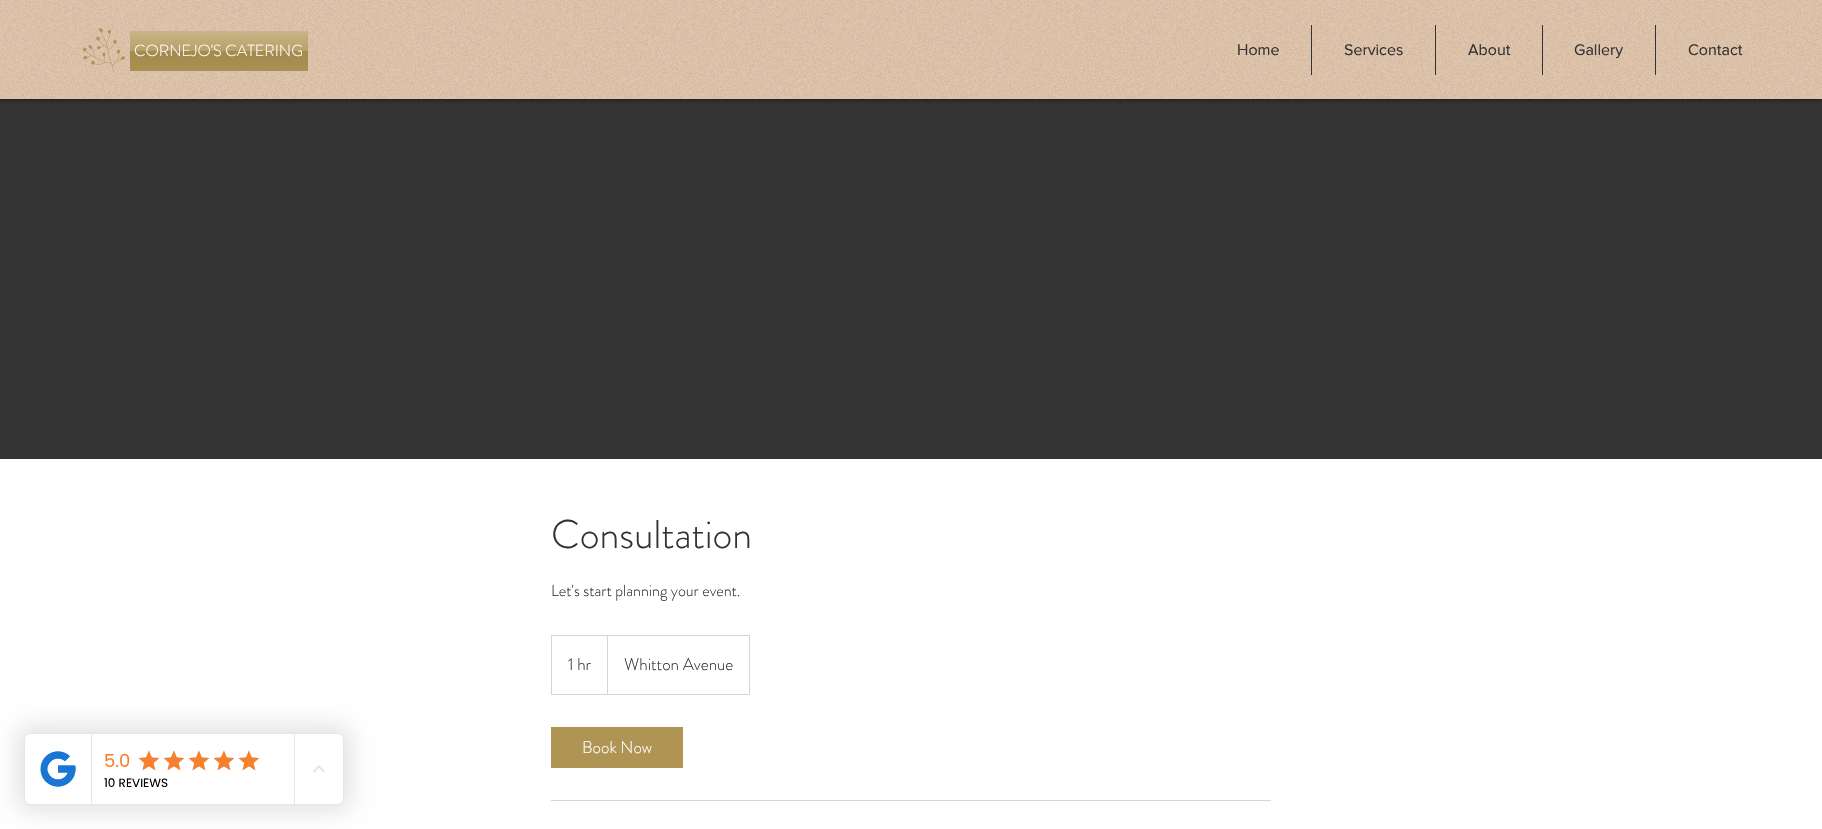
void draw(SkCanvas* canvas) {
	SkPaint paint;
	paint.setAntiAlias(true);
	auto svgPath = [&](const char* data, bool evenOdd = false) {
		SkPath result = *SkParsePath::FromSVGString(data);
		if (evenOdd) result.setFillType(SkPathFillType::kEvenOdd);
		return result;
	};
	canvas->clear(0xffffffff);
	paint.setColor(0xff333333);
	canvas->drawRect(SkRect::MakeXYWH(0, 99, 1822, 360), paint);
	paint.setColor(0xb3000000);
	paint.setMaskFilter(SkMaskFilter::MakeBlur(kNormal_SkBlurStyle, 2.5));
	canvas->drawRect(SkRect::MakeXYWH(0, 0, 1822, 99), paint);
	paint.setMaskFilter(nullptr);
	paint.setColor(0xffe2c6ad);
	canvas->drawRect(SkRect::MakeXYWH(0, 0, 1822, 99), paint);
	canvas->drawImageRect(SkImages::DeferredFromEncodedData(SkData::MakeFromFileName("img1.png")), SkRect::MakeXYWH(0, 0, 1822, 99), SkSamplingOptions());
	canvas->drawImageRect(SkImages::DeferredFromEncodedData(SkData::MakeFromFileName("img2.png")), SkRect::MakeXYWH(83, 28, 42, 44), SkSamplingOptions());
	paint.setColor(0xffaf9453);
	canvas->drawRect(SkRect::MakeXYWH(130, 31, 178, 40), paint);
	canvas->drawImageRect(SkImages::DeferredFromEncodedData(SkData::MakeFromFileName("img3.png")), SkRect::MakeXYWH(130, 31, 178, 40), SkSamplingOptions());
	SkFont f1(fontMgr->matchFamilyStyle("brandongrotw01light", SkFontStyle(300, SkFontStyle::kNormal_Width, SkFontStyle::kUpright_Slant)), 16);
	f1.setSubpixel(true);
	paint.setColor(0xffffffff);
	canvas->drawString("CORNEJO'S CATERING", 134, 56, f1, paint);
	SkFont f2(fontMgr->matchFamilyStyle("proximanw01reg", SkFontStyle::Normal()), 16);
	f2.setSubpixel(true);
	paint.setColor(0xff333333);
	canvas->drawString("Home", 1237, 55, f2, paint);
	canvas->drawRect(SkRect::MakeXYWH(1311, 25, 1, 50), paint);
	canvas->drawString("Services", 1344, 55, f2, paint);
	canvas->drawRect(SkRect::MakeXYWH(1435, 25, 1, 50), paint);
	canvas->drawString("About", 1468, 55, f2, paint);
	canvas->drawRect(SkRect::MakeXYWH(1542, 25, 1, 50), paint);
	canvas->drawString("Gallery", 1574, 55, f2, paint);
	canvas->drawRect(SkRect::MakeXYWH(1655, 25, 1, 50), paint);
	canvas->drawString("Contact", 1688, 55, f2, paint);
	SkFont f3(fontMgr->matchFamilyStyle("brandongrotw01light", SkFontStyle(300, SkFontStyle::kNormal_Width, SkFontStyle::kUpright_Slant)), 40);
	f3.setSubpixel(true);
	canvas->drawString("Consultation", 551, 548, f3, paint);
	canvas->drawString("Let's start planning your event.", 551, 596, f1, paint);
	paint.setStroke(true);
	paint.setStrokeWidth(1);
	paint.setColor(0xffd6d6d6);
	canvas->drawRect(SkRect::MakeXYWH(551.5, 635.5, 198, 59), paint);
	SkFont f4(fontMgr->matchFamilyStyle("brandongrotw01light", SkFontStyle(300, SkFontStyle::kNormal_Width, SkFontStyle::kUpright_Slant)), 17);
	f4.setSubpixel(true);
	paint.setStroke(false);
	paint.setColor(0xff333333);
	canvas->drawString("1 hr", 568, 670, f4, paint);
	paint.setColor(0xffd6d6d6);
	canvas->drawPath(svgPath("M607 694V635L608 636V694Z"), paint);
	paint.setColor(0xff333333);
	canvas->drawString("Whitton Avenue", 624, 670, f4, paint);
	paint.setColor(0xffaf9453);
	canvas->drawRect(SkRect::MakeXYWH(551, 727, 132, 41), paint);
	paint.setColor(0xffffffff);
	canvas->drawString("Book Now", 582, 753, f4, paint);
	paint.setColor(0xffd6d6d6);
	canvas->drawRect(SkRect::MakeXYWH(551, 800, 720, 1), paint);
	paint.setColor(0x1f000000);
	paint.setMaskFilter(SkMaskFilter::MakeBlur(kNormal_SkBlurStyle, 12));
	canvas->drawRoundRect(SkRect::MakeXYWH(18, 727, 332, 84), 12, 12, paint);
	paint.setMaskFilter(nullptr);
	paint.setColor(0xffffffff);
	canvas->drawRoundRect(SkRect::MakeXYWH(24.5, 733.5, 319, 71), 5.5, 5.5, paint);
	paint.setStroke(true);
	paint.setColor(0xffe5e5e5);
	canvas->drawRoundRect(SkRect::MakeXYWH(24.5, 733.5, 319, 71), 5.5, 5.5, paint);
	paint.setStroke(false);
	paint.setColor(0xffffffff);
	canvas->drawPath(svgPath("M31 734H92V804H31C27.5 804 25 801.5 25 798V740C25 736.5 27.5 734 31 734Z"), paint);
	paint.setColor(0xffe5e5e5);
	canvas->drawRect(SkRect::MakeXYWH(91, 734, 1, 70), paint);
	canvas->drawImageRect(SkImages::DeferredFromEncodedData(SkData::MakeFromFileName("img4.png")), SkRect::MakeXYWH(40, 751, 36, 36), SkSamplingOptions());
	canvas->drawRect(SkRect::MakeXYWH(294, 734, 1, 70), paint);
	SkFont f5(fontMgr->matchFamilyStyle("Poppins", SkFontStyle::Normal()), 18);
	f5.setSubpixel(true);
	paint.setColor(0xfff7802f);
	canvas->drawString("5.0", 104, 767, f5, paint);
	canvas->drawImageRect(SkImages::DeferredFromEncodedData(SkData::MakeFromFileName("img6.png")), SkRect::MakeXYWH(138, 751, 21, 19), SkSamplingOptions());
	canvas->drawImageRect(SkImages::DeferredFromEncodedData(SkData::MakeFromFileName("img5.png")), SkRect::MakeXYWH(138, 750, 22, 21), SkSamplingOptions());
	canvas->drawImageRect(SkImages::DeferredFromEncodedData(SkData::MakeFromFileName("img6.png")), SkRect::MakeXYWH(163, 751, 21, 19), SkSamplingOptions());
	canvas->drawImageRect(SkImages::DeferredFromEncodedData(SkData::MakeFromFileName("img5.png")), SkRect::MakeXYWH(163, 750, 22, 21), SkSamplingOptions());
	canvas->drawImageRect(SkImages::DeferredFromEncodedData(SkData::MakeFromFileName("img6.png")), SkRect::MakeXYWH(188, 751, 21, 19), SkSamplingOptions());
	canvas->drawImageRect(SkImages::DeferredFromEncodedData(SkData::MakeFromFileName("img5.png")), SkRect::MakeXYWH(188, 750, 22, 21), SkSamplingOptions());
	canvas->drawImageRect(SkImages::DeferredFromEncodedData(SkData::MakeFromFileName("img6.png")), SkRect::MakeXYWH(213, 751, 21, 19), SkSamplingOptions());
	canvas->drawImageRect(SkImages::DeferredFromEncodedData(SkData::MakeFromFileName("img5.png")), SkRect::MakeXYWH(213, 750, 22, 21), SkSamplingOptions());
	canvas->drawImageRect(SkImages::DeferredFromEncodedData(SkData::MakeFromFileName("img6.png")), SkRect::MakeXYWH(238, 751, 21, 19), SkSamplingOptions());
	canvas->drawImageRect(SkImages::DeferredFromEncodedData(SkData::MakeFromFileName("img5.png")), SkRect::MakeXYWH(238, 750, 22, 21), SkSamplingOptions());
	SkFont f6(fontMgr->matchFamilyStyle("Poppins", SkFontStyle::Normal()), 12);
	f6.setSubpixel(true);
	paint.setColor(0xff000000);
	canvas->drawString("10 REVIEWS", 104, 787, f6, paint);
	canvas->drawImageRect(SkImages::DeferredFromEncodedData(SkData::MakeFromFileName("img7.png")), SkRect::MakeXYWH(313, 765, 12, 8), SkSamplingOptions());
}
